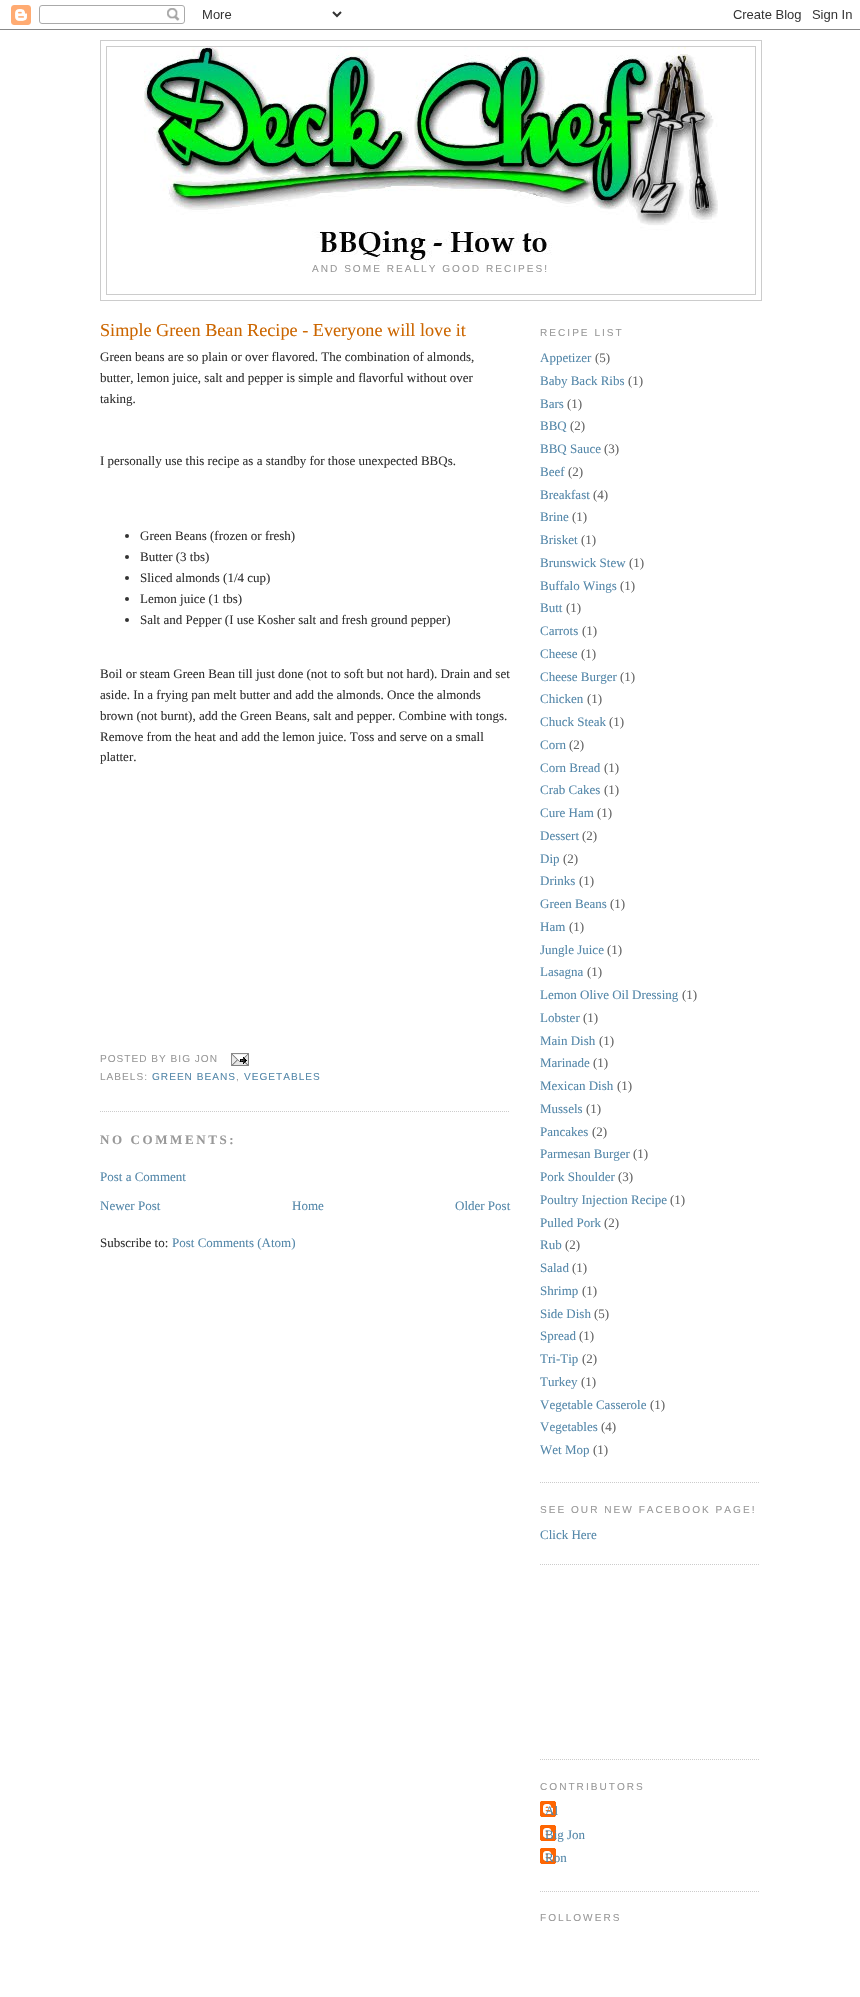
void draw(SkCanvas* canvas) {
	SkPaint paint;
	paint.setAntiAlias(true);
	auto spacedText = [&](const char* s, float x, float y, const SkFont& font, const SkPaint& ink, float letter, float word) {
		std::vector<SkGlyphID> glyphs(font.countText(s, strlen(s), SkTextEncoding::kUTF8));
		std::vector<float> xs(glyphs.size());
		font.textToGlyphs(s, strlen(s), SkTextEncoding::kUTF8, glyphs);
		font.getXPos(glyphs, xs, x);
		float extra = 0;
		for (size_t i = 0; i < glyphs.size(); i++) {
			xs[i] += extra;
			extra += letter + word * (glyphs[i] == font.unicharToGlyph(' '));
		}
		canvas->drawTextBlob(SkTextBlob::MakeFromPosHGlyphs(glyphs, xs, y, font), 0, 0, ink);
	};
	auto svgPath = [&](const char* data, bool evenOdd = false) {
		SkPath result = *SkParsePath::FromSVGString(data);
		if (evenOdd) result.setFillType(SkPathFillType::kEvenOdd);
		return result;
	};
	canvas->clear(0xffffffff);
	canvas->drawImageRect(SkImages::DeferredFromEncodedData(SkData::MakeFromFileName("img1.png")), SkRect::MakeXYWH(0, 5, 860, 25), SkSamplingOptions());
	paint.setStroke(true);
	paint.setStrokeWidth(1);
	paint.setColor(0xffcccccc);
	canvas->drawRect(SkRect::MakeXYWH(100.5, 40.5, 661, 260), paint);
	canvas->drawRect(SkRect::MakeXYWH(106.5, 46.5, 649, 248), paint);
	canvas->drawImageRect(SkImages::DeferredFromEncodedData(SkData::MakeFromFileName("img2.png")), SkRect::MakeXYWH(144, 47, 574, 216), SkSamplingOptions());
	SkFont f1(fontMgr->matchFamilyStyle("Liberation Sans", SkFontStyle::Normal()), 10.1);
	f1.setSubpixel(true);
	paint.setStroke(false);
	paint.setColor(0xff999999);
	spacedText("AND SOME REALLY GOOD RECIPES!", 312, 272, f1, paint, 2, 0);
	paint.setStroke(true);
	paint.setColor(0xffcccccc);
	paint.setPathEffect(SkDashPathEffect::Make({{1, 1}}, 0));
	canvas->drawPath(svgPath("M100 1111.5H510"), paint);
	paint.setPathEffect(nullptr);
	SkFont f2(fontMgr->matchFamilyStyle("Liberation Serif", SkFontStyle::Normal()), 18.2);
	f2.setSubpixel(true);
	paint.setStroke(false);
	paint.setColor(0xffcc6600);
	canvas->drawString("Simple Green Bean Recipe - Everyone will love it", 100, 336, f2, paint);
	SkFont f3(fontMgr->matchFamilyStyle("Liberation Serif", SkFontStyle::Normal()), 13);
	f3.setSubpixel(true);
	paint.setColor(0xff333333);
	canvas->drawString("Green beans are so plain or over flavored. The combination of almonds,", 100, 361, f3, paint);
	canvas->drawString("butter, lemon juice, salt and pepper is simple and flavorful without over", 100, 382, f3, paint);
	canvas->drawString("taking.", 100, 403, f3, paint);
	canvas->drawString("I personally use this recipe as a standby for those unexpected BBQs.", 100, 465, f3, paint);
	canvas->drawCircle(127, 536, 2, paint);
	canvas->drawString("Green Beans (frozen or fresh)", 140, 540, f3, paint);
	canvas->drawCircle(127, 557, 2, paint);
	canvas->drawString("Butter (3 tbs)", 140, 561, f3, paint);
	canvas->drawCircle(127, 578, 2, paint);
	canvas->drawString("Sliced almonds (1/4 cup)", 140, 582, f3, paint);
	canvas->drawCircle(127, 599, 2, paint);
	canvas->drawString("Lemon juice (1 tbs)", 140, 603, f3, paint);
	canvas->drawCircle(127, 620, 2, paint);
	canvas->drawString("Salt and Pepper (I use Kosher salt and fresh ground pepper)", 140, 624, f3, paint);
	canvas->drawString("Boil or steam Green Bean till just done (not to soft but not hard). Drain and set", 100, 678, f3, paint);
	canvas->drawString("aside. In a frying pan melt butter and add the almonds. Once the almonds", 100, 699, f3, paint);
	canvas->drawString("brown (not burnt), add the Green Beans, salt and pepper. Combine with tongs.", 100, 720, f3, paint);
	canvas->drawString("Remove from the heat and add the lemon juice. Toss and serve on a small", 100, 741, f3, paint);
	canvas->drawString("platter.", 100, 761, f3, paint);
	paint.setColor(0xff999999);
	spacedText("POSTED BY BIG JON", 100, 1062, f1, paint, 1, 0);
	canvas->drawImageRect(SkImages::DeferredFromEncodedData(SkData::MakeFromFileName("img3.png")), SkRect::MakeXYWH(231, 1053, 18, 13), SkSamplingOptions());
	spacedText("LABELS:", 100, 1080, f1, paint, 1, 0);
	paint.setColor(0xff5588aa);
	spacedText("GREEN BEANS", 152, 1080, f1, paint, 1, 0);
	paint.setColor(0xff999999);
	spacedText(",", 236, 1080, f1, paint, 1, 0);
	paint.setColor(0xff5588aa);
	spacedText("VEGETABLES", 244, 1080, f1, paint, 1, 0);
	SkFont f4(fontMgr->matchFamilyStyle("Liberation Serif", SkFontStyle::Bold()), 13);
	f4.setSubpixel(true);
	paint.setColor(0xff999999);
	spacedText("NO COMMENTS:", 100, 1144, f4, paint, 2.6, 0);
	paint.setColor(0xff5588aa);
	canvas->drawString("Post a Comment", 100, 1181, f3, paint);
	canvas->drawString("Newer Post", 100, 1210, f3, paint);
	canvas->drawString("Home", 292, 1210, f3, paint);
	canvas->drawString("Older Post", 455, 1210, f3, paint);
	paint.setColor(0xff333333);
	canvas->drawString("Subscribe to:", 100, 1247, f3, paint);
	paint.setColor(0xff5588aa);
	canvas->drawString("Post Comments (Atom)", 172, 1247, f3, paint);
	paint.setStroke(true);
	paint.setColor(0xffcccccc);
	paint.setPathEffect(SkDashPathEffect::Make({{1, 1}}, 0));
	canvas->drawPath(svgPath("M540 1482.5H760"), paint);
	paint.setPathEffect(nullptr);
	paint.setStroke(false);
	paint.setColor(0xff999999);
	spacedText("RECIPE LIST", 540, 336, f1, paint, 2, 0);
	paint.setColor(0xff5588aa);
	canvas->drawString("Appetizer", 540, 362, f3, paint);
	paint.setColor(0xff666666);
	canvas->drawString("(5)", 595, 362, f3, paint);
	paint.setColor(0xff5588aa);
	canvas->drawString("Baby Back Ribs", 540, 385, f3, paint);
	paint.setColor(0xff666666);
	canvas->drawString("(1)", 628, 385, f3, paint);
	paint.setColor(0xff5588aa);
	canvas->drawString("Bars", 540, 408, f3, paint);
	paint.setColor(0xff666666);
	canvas->drawString("(1)", 567, 408, f3, paint);
	paint.setColor(0xff5588aa);
	canvas->drawString("BBQ", 540, 430, f3, paint);
	paint.setColor(0xff666666);
	canvas->drawString("(2)", 570, 430, f3, paint);
	paint.setColor(0xff5588aa);
	canvas->drawString("BBQ Sauce", 540, 453, f3, paint);
	paint.setColor(0xff666666);
	canvas->drawString("(3)", 604, 453, f3, paint);
	paint.setColor(0xff5588aa);
	canvas->drawString("Beef", 540, 476, f3, paint);
	paint.setColor(0xff666666);
	canvas->drawString("(2)", 568, 476, f3, paint);
	paint.setColor(0xff5588aa);
	canvas->drawString("Breakfast", 540, 499, f3, paint);
	paint.setColor(0xff666666);
	canvas->drawString("(4)", 593, 499, f3, paint);
	paint.setColor(0xff5588aa);
	canvas->drawString("Brine", 540, 521, f3, paint);
	paint.setColor(0xff666666);
	canvas->drawString("(1)", 572, 521, f3, paint);
	paint.setColor(0xff5588aa);
	canvas->drawString("Brisket", 540, 544, f3, paint);
	paint.setColor(0xff666666);
	canvas->drawString("(1)", 581, 544, f3, paint);
	paint.setColor(0xff5588aa);
	canvas->drawString("Brunswick Stew", 540, 567, f3, paint);
	paint.setColor(0xff666666);
	canvas->drawString("(1)", 629, 567, f3, paint);
	paint.setColor(0xff5588aa);
	canvas->drawString("Buffalo Wings", 540, 590, f3, paint);
	paint.setColor(0xff666666);
	canvas->drawString("(1)", 620, 590, f3, paint);
	paint.setColor(0xff5588aa);
	canvas->drawString("Butt", 540, 612, f3, paint);
	paint.setColor(0xff666666);
	canvas->drawString("(1)", 566, 612, f3, paint);
	paint.setColor(0xff5588aa);
	canvas->drawString("Carrots", 540, 635, f3, paint);
	paint.setColor(0xff666666);
	canvas->drawString("(1)", 582, 635, f3, paint);
	paint.setColor(0xff5588aa);
	canvas->drawString("Cheese", 540, 658, f3, paint);
	paint.setColor(0xff666666);
	canvas->drawString("(1)", 581, 658, f3, paint);
	paint.setColor(0xff5588aa);
	canvas->drawString("Cheese Burger", 540, 681, f3, paint);
	paint.setColor(0xff666666);
	canvas->drawString("(1)", 620, 681, f3, paint);
	paint.setColor(0xff5588aa);
	canvas->drawString("Chicken", 540, 703, f3, paint);
	paint.setColor(0xff666666);
	canvas->drawString("(1)", 587, 703, f3, paint);
	paint.setColor(0xff5588aa);
	canvas->drawString("Chuck Steak", 540, 726, f3, paint);
	paint.setColor(0xff666666);
	canvas->drawString("(1)", 609, 726, f3, paint);
	paint.setColor(0xff5588aa);
	canvas->drawString("Corn", 540, 749, f3, paint);
	paint.setColor(0xff666666);
	canvas->drawString("(2)", 569, 749, f3, paint);
	paint.setColor(0xff5588aa);
	canvas->drawString("Corn Bread", 540, 772, f3, paint);
	paint.setColor(0xff666666);
	canvas->drawString("(1)", 604, 772, f3, paint);
	paint.setColor(0xff5588aa);
	canvas->drawString("Crab Cakes", 540, 794, f3, paint);
	paint.setColor(0xff666666);
	canvas->drawString("(1)", 604, 794, f3, paint);
	paint.setColor(0xff5588aa);
	canvas->drawString("Cure Ham", 540, 817, f3, paint);
	paint.setColor(0xff666666);
	canvas->drawString("(1)", 597, 817, f3, paint);
	paint.setColor(0xff5588aa);
	canvas->drawString("Dessert", 540, 840, f3, paint);
	paint.setColor(0xff666666);
	canvas->drawString("(2)", 582, 840, f3, paint);
	paint.setColor(0xff5588aa);
	canvas->drawString("Dip", 540, 863, f3, paint);
	paint.setColor(0xff666666);
	canvas->drawString("(2)", 563, 863, f3, paint);
	paint.setColor(0xff5588aa);
	canvas->drawString("Drinks", 540, 885, f3, paint);
	paint.setColor(0xff666666);
	canvas->drawString("(1)", 579, 885, f3, paint);
	paint.setColor(0xff5588aa);
	canvas->drawString("Green Beans", 540, 908, f3, paint);
	paint.setColor(0xff666666);
	canvas->drawString("(1)", 610, 908, f3, paint);
	paint.setColor(0xff5588aa);
	canvas->drawString("Ham", 540, 931, f3, paint);
	paint.setColor(0xff666666);
	canvas->drawString("(1)", 569, 931, f3, paint);
	paint.setColor(0xff5588aa);
	canvas->drawString("Jungle Juice", 540, 954, f3, paint);
	paint.setColor(0xff666666);
	canvas->drawString("(1)", 607, 954, f3, paint);
	paint.setColor(0xff5588aa);
	canvas->drawString("Lasagna", 540, 976, f3, paint);
	paint.setColor(0xff666666);
	canvas->drawString("(1)", 587, 976, f3, paint);
	paint.setColor(0xff5588aa);
	canvas->drawString("Lemon Olive Oil Dressing", 540, 999, f3, paint);
	paint.setColor(0xff666666);
	canvas->drawString("(1)", 682, 999, f3, paint);
	paint.setColor(0xff5588aa);
	canvas->drawString("Lobster", 540, 1022, f3, paint);
	paint.setColor(0xff666666);
	canvas->drawString("(1)", 583, 1022, f3, paint);
	paint.setColor(0xff5588aa);
	canvas->drawString("Main Dish", 540, 1045, f3, paint);
	paint.setColor(0xff666666);
	canvas->drawString("(1)", 599, 1045, f3, paint);
	paint.setColor(0xff5588aa);
	canvas->drawString("Marinade", 540, 1067, f3, paint);
	paint.setColor(0xff666666);
	canvas->drawString("(1)", 593, 1067, f3, paint);
	paint.setColor(0xff5588aa);
	canvas->drawString("Mexican Dish", 540, 1090, f3, paint);
	paint.setColor(0xff666666);
	canvas->drawString("(1)", 617, 1090, f3, paint);
	paint.setColor(0xff5588aa);
	canvas->drawString("Mussels", 540, 1113, f3, paint);
	paint.setColor(0xff666666);
	canvas->drawString("(1)", 586, 1113, f3, paint);
	paint.setColor(0xff5588aa);
	canvas->drawString("Pancakes", 540, 1136, f3, paint);
	paint.setColor(0xff666666);
	canvas->drawString("(2)", 592, 1136, f3, paint);
	paint.setColor(0xff5588aa);
	canvas->drawString("Parmesan Burger", 540, 1158, f3, paint);
	paint.setColor(0xff666666);
	canvas->drawString("(1)", 633, 1158, f3, paint);
	paint.setColor(0xff5588aa);
	canvas->drawString("Pork Shoulder", 540, 1181, f3, paint);
	paint.setColor(0xff666666);
	canvas->drawString("(3)", 618, 1181, f3, paint);
	paint.setColor(0xff5588aa);
	canvas->drawString("Poultry Injection Recipe", 540, 1204, f3, paint);
	paint.setColor(0xff666666);
	canvas->drawString("(1)", 670, 1204, f3, paint);
	paint.setColor(0xff5588aa);
	canvas->drawString("Pulled Pork", 540, 1227, f3, paint);
	paint.setColor(0xff666666);
	canvas->drawString("(2)", 604, 1227, f3, paint);
	paint.setColor(0xff5588aa);
	canvas->drawString("Rub", 540, 1249, f3, paint);
	paint.setColor(0xff666666);
	canvas->drawString("(2)", 565, 1249, f3, paint);
	paint.setColor(0xff5588aa);
	canvas->drawString("Salad", 540, 1272, f3, paint);
	paint.setColor(0xff666666);
	canvas->drawString("(1)", 572, 1272, f3, paint);
	paint.setColor(0xff5588aa);
	canvas->drawString("Shrimp", 540, 1295, f3, paint);
	paint.setColor(0xff666666);
	canvas->drawString("(1)", 582, 1295, f3, paint);
	paint.setColor(0xff5588aa);
	canvas->drawString("Side Dish", 540, 1318, f3, paint);
	paint.setColor(0xff666666);
	canvas->drawString("(5)", 594, 1318, f3, paint);
	paint.setColor(0xff5588aa);
	canvas->drawString("Spread", 540, 1340, f3, paint);
	paint.setColor(0xff666666);
	canvas->drawString("(1)", 579, 1340, f3, paint);
	paint.setColor(0xff5588aa);
	canvas->drawString("Tri-Tip", 540, 1363, f3, paint);
	paint.setColor(0xff666666);
	canvas->drawString("(2)", 582, 1363, f3, paint);
	paint.setColor(0xff5588aa);
	canvas->drawString("Turkey", 540, 1386, f3, paint);
	paint.setColor(0xff666666);
	canvas->drawString("(1)", 581, 1386, f3, paint);
	paint.setColor(0xff5588aa);
	canvas->drawString("Vegetable Casserole", 540, 1409, f3, paint);
	paint.setColor(0xff666666);
	canvas->drawString("(1)", 650, 1409, f3, paint);
	paint.setColor(0xff5588aa);
	canvas->drawString("Vegetables", 540, 1431, f3, paint);
	paint.setColor(0xff666666);
	canvas->drawString("(4)", 601, 1431, f3, paint);
	paint.setColor(0xff5588aa);
	canvas->drawString("Wet Mop", 540, 1454, f3, paint);
	paint.setColor(0xff666666);
	canvas->drawString("(1)", 593, 1454, f3, paint);
	paint.setStroke(true);
	paint.setColor(0xffcccccc);
	paint.setPathEffect(SkDashPathEffect::Make({{1, 1}}, 0));
	canvas->drawPath(svgPath("M540 1564.5H760"), paint);
	paint.setPathEffect(nullptr);
	paint.setStroke(false);
	paint.setColor(0xff999999);
	spacedText("SEE OUR NEW FACEBOOK PAGE!", 540, 1513, f1, paint, 2, 0);
	paint.setColor(0xff5588aa);
	canvas->drawString("Click Here", 540, 1539, f3, paint);
	paint.setStroke(true);
	paint.setColor(0xffcccccc);
	paint.setPathEffect(SkDashPathEffect::Make({{1, 1}}, 0));
	canvas->drawPath(svgPath("M540 1759.5H760"), paint);
	paint.setPathEffect(nullptr);
	paint.setPathEffect(SkDashPathEffect::Make({{1, 1}}, 0));
	canvas->drawPath(svgPath("M540 1891.5H760"), paint);
	paint.setPathEffect(nullptr);
	paint.setStroke(false);
	paint.setColor(0xff999999);
	spacedText("CONTRIBUTORS", 540, 1790, f1, paint, 2, 0);
	canvas->drawImageRect(SkImages::DeferredFromEncodedData(SkData::MakeFromFileName("img4.png")), SkRect::MakeXYWH(540, 1801, 16, 16), SkSamplingOptions());
	paint.setColor(0xff5588aa);
	canvas->drawString("Al", 545, 1815, f3, paint);
	canvas->drawImageRect(SkImages::DeferredFromEncodedData(SkData::MakeFromFileName("img4.png")), SkRect::MakeXYWH(540, 1825, 16, 16), SkSamplingOptions());
	canvas->drawString("Big Jon", 545, 1839, f3, paint);
	canvas->drawImageRect(SkImages::DeferredFromEncodedData(SkData::MakeFromFileName("img4.png")), SkRect::MakeXYWH(540, 1848, 16, 16), SkSamplingOptions());
	canvas->drawString("Ron", 545, 1862, f3, paint);
	paint.setColor(0xff999999);
	spacedText("FOLLOWERS", 540, 1921, f1, paint, 2, 0);
}
